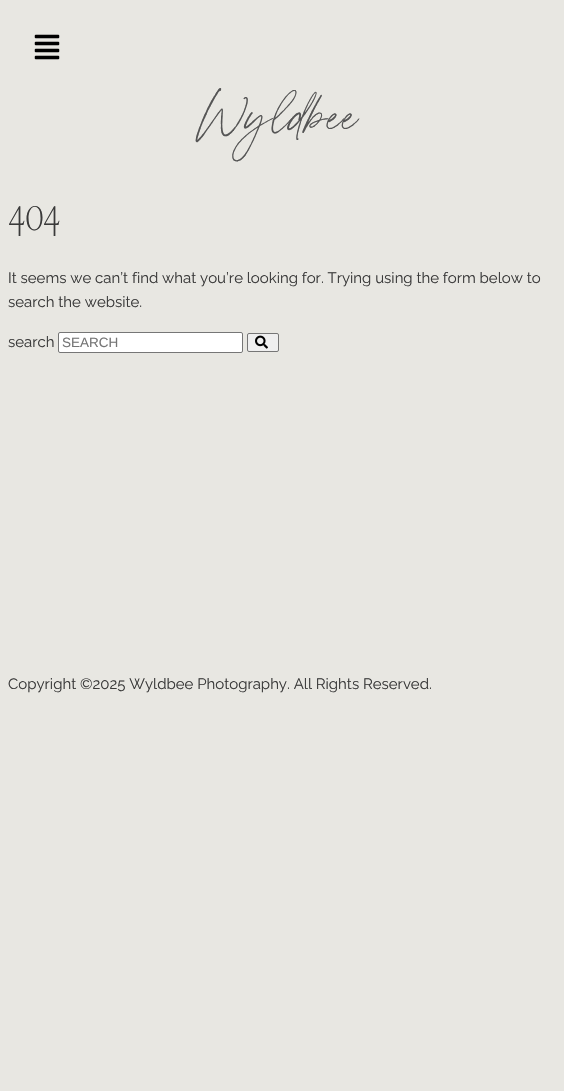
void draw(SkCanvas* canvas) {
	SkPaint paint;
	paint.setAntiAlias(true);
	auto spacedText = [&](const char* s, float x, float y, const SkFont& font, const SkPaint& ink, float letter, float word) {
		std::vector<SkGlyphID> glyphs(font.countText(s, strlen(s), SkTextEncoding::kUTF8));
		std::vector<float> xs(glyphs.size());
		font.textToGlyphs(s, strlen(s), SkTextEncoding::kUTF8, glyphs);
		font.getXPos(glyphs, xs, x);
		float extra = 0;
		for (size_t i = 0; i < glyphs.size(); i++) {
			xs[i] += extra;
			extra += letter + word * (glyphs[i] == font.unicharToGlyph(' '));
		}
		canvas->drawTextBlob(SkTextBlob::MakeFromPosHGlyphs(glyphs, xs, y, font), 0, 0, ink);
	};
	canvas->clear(0xffe8e7e2);
	canvas->drawImageRect(SkImages::DeferredFromEncodedData(SkData::MakeFromFileName("img1.png")), SkRect::MakeXYWH(34, 34, 26, 26), SkSamplingOptions());
	SkFont f1(fontMgr->matchFamilyStyle("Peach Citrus", SkFontStyle::Normal()), 55);
	f1.setSubpixel(true);
	paint.setColor(0xff555555);
	spacedText("Wyldbee", 205, 129, f1, paint, 1, 0);
	SkFont f2(fontMgr->matchFamilyStyle("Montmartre", SkFontStyle(100, SkFontStyle::kNormal_Width, SkFontStyle::kUpright_Slant)), 44);
	f2.setSubpixel(true);
	paint.setColor(0xff3a3a3a);
	spacedText("404", 8, 230, f2, paint, -1, 0);
	SkFont f3(fontMgr->matchFamilyStyle("Raleway", SkFontStyle::Normal()), 15);
	f3.setSubpixel(true);
	canvas->drawString("It seems we can’t find what you’re looking for. Trying using the form below to", 8, 283, f3, paint);
	canvas->drawString("search the website.", 8, 307, f3, paint);
	canvas->drawString("search", 8, 347, f3, paint);
	paint.setColor(0xffffffff);
	canvas->drawRoundRect(SkRect::MakeXYWH(58.5, 332.5, 184, 20), 1.5, 1.5, paint);
	paint.setStroke(true);
	paint.setStrokeWidth(1);
	paint.setColor(0xff767676);
	canvas->drawRoundRect(SkRect::MakeXYWH(58.5, 332.5, 184, 20), 1.5, 1.5, paint);
	SkFont f4(fontMgr->matchFamilyStyle("Liberation Sans", SkFontStyle::Normal()), 13.5);
	f4.setSubpixel(true);
	paint.setStroke(false);
	paint.setColor(0xff757575);
	canvas->drawString("SEARCH", 62, 347, f4, paint);
	paint.setColor(0xffefefef);
	canvas->drawRoundRect(SkRect::MakeXYWH(247.5, 333.5, 31, 18), 1.5, 1.5, paint);
	paint.setStroke(true);
	paint.setColor(0xff767676);
	canvas->drawRoundRect(SkRect::MakeXYWH(247.5, 333.5, 31, 18), 1.5, 1.5, paint);
	canvas->drawImageRect(SkImages::DeferredFromEncodedData(SkData::MakeFromFileName("img2.png")), SkRect::MakeXYWH(255, 335, 13, 14), SkSamplingOptions());
	paint.setStroke(false);
	paint.setColor(0xff3a3a3a);
	canvas->drawString("Copyright ©2025 Wyldbee Photography. All Rights Reserved.", 8, 689, f3, paint);
}
